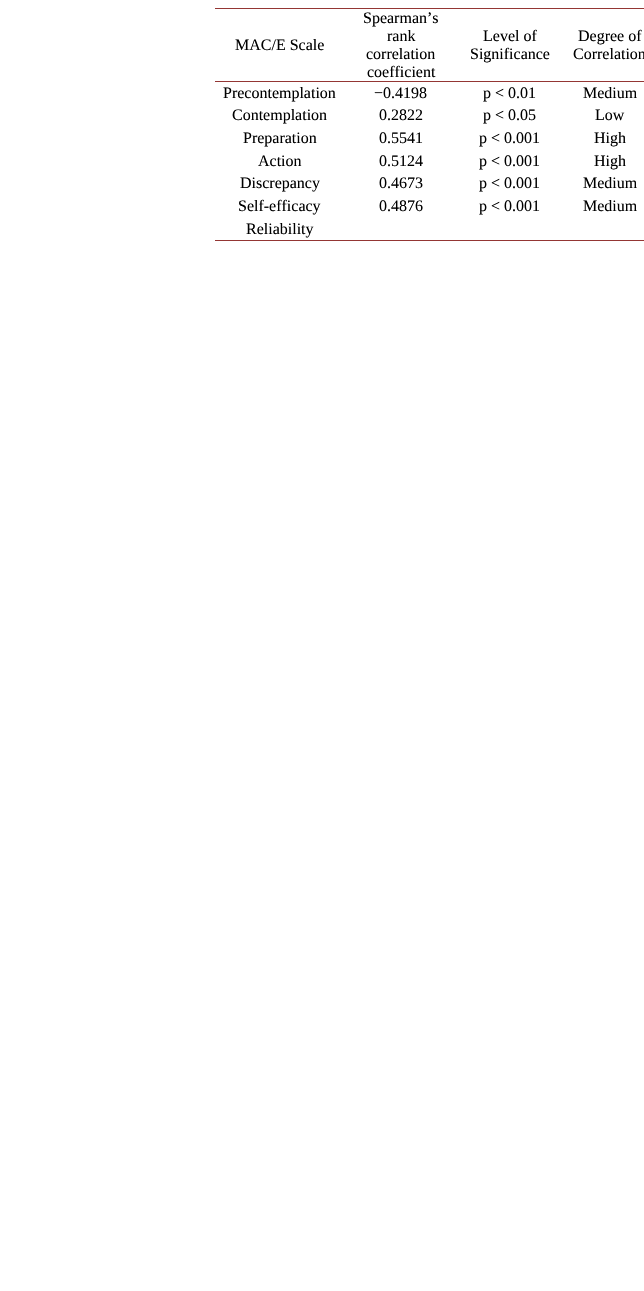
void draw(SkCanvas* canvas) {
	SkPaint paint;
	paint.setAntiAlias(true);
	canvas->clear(0xffffffff);
	SkFont f1(fontMgr->matchFamilyStyle("Liberation Serif", SkFontStyle::Normal()), 16);
	f1.setSubpixel(true);
	paint.setColor(0xff000000);
	canvas->drawString("MAC/E Scale", 235, 50, f1, paint);
	canvas->drawString("Spearman’s", 363, 23, f1, paint);
	canvas->drawString("rank", 387, 41, f1, paint);
	canvas->drawString("correlation", 366, 59, f1, paint);
	canvas->drawString("coefficient", 367, 77, f1, paint);
	canvas->drawString("Level of", 483, 41, f1, paint);
	canvas->drawString("Significance", 470, 59, f1, paint);
	paint.setColor(0xff943634);
	canvas->drawRect(SkRect::MakeXYWH(215, 8, 429, 1), paint);
	canvas->drawRect(SkRect::MakeXYWH(215, 81, 429, 1), paint);
	paint.setColor(0xff000000);
	canvas->drawString("Degree of", 578, 41, f1, paint);
	canvas->drawString("Correlation", 573, 59, f1, paint);
	canvas->drawString("Precontemplation", 223, 98, f1, paint);
	canvas->drawString("−0.4198", 374, 98, f1, paint);
	canvas->drawString("p < 0.01", 483, 98, f1, paint);
	canvas->drawString("Medium", 583, 98, f1, paint);
	canvas->drawString("Contemplation", 232, 120, f1, paint);
	canvas->drawString("0.2822", 379, 120, f1, paint);
	canvas->drawString("p < 0.05", 483, 120, f1, paint);
	canvas->drawString("Low", 595, 120, f1, paint);
	canvas->drawString("Preparation", 243, 143, f1, paint);
	canvas->drawString("0.5541", 379, 143, f1, paint);
	canvas->drawString("p < 0.001", 479, 143, f1, paint);
	canvas->drawString("High", 594, 143, f1, paint);
	canvas->drawString("Action", 258, 166, f1, paint);
	canvas->drawString("0.5124", 379, 166, f1, paint);
	canvas->drawString("p < 0.001", 479, 166, f1, paint);
	canvas->drawString("High", 594, 166, f1, paint);
	canvas->drawString("Discrepancy", 240, 188, f1, paint);
	canvas->drawString("0.4673", 379, 188, f1, paint);
	canvas->drawString("p < 0.001", 479, 188, f1, paint);
	canvas->drawString("Medium", 583, 188, f1, paint);
	canvas->drawString("Self-efficacy", 238, 211, f1, paint);
	canvas->drawString("0.4876", 379, 211, f1, paint);
	canvas->drawString("p < 0.001", 479, 211, f1, paint);
	canvas->drawString("Medium", 583, 211, f1, paint);
	canvas->drawString("Reliability", 246, 234, f1, paint);
	paint.setColor(0xff943634);
	canvas->drawRect(SkRect::MakeXYWH(215, 240, 429, 1), paint);
}
